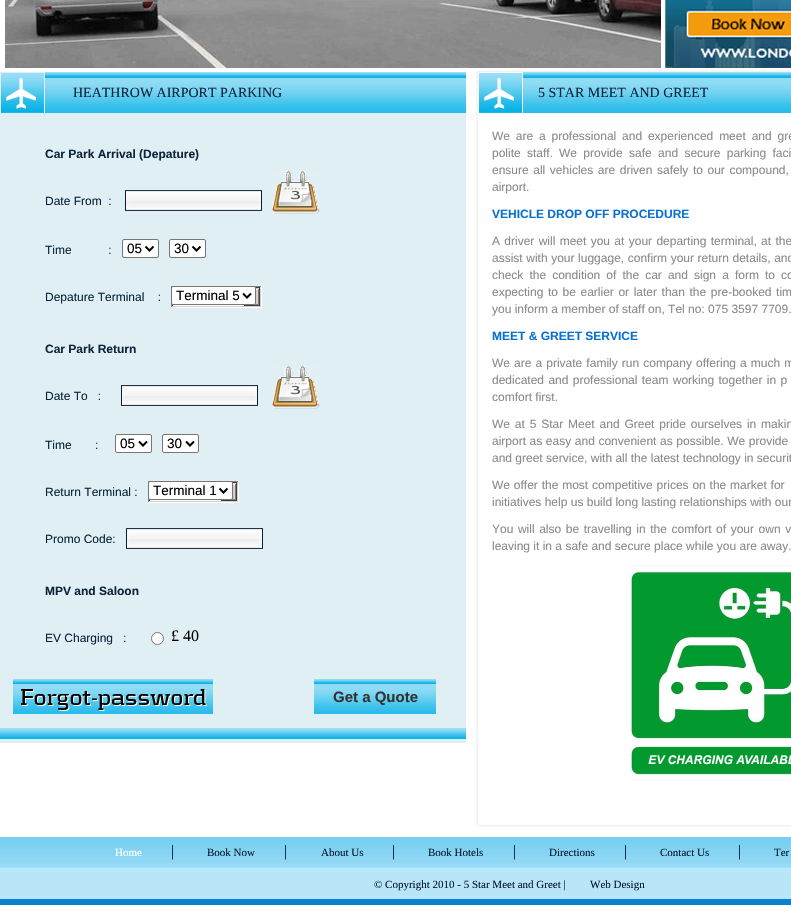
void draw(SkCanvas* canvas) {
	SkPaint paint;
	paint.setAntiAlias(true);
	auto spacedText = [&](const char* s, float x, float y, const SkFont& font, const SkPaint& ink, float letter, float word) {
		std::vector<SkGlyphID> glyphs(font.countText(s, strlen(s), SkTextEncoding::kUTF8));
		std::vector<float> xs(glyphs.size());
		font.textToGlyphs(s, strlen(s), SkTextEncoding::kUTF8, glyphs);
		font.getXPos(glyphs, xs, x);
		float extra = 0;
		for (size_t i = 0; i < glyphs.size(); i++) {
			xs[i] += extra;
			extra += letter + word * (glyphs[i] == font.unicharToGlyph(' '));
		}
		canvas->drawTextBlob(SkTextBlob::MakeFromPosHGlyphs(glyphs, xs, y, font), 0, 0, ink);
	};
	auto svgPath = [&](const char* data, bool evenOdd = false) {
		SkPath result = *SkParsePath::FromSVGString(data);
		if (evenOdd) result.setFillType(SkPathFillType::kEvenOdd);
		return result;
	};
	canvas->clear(0xffffffff);
	canvas->drawImageRect(SkImages::DeferredFromEncodedData(SkData::MakeFromFileName("img1.png")), SkRect::MakeXYWH(5, 0, 656, 68), SkSamplingOptions());
	canvas->drawImageRect(SkImages::DeferredFromEncodedData(SkData::MakeFromFileName("img2.png")), SkRect::MakeXYWH(665, 0, 126, 68), SkSamplingOptions());
	paint.setColor(0xffdfeff4);
	canvas->drawRect(SkRect::MakeXYWH(0, 72, 466, 671), paint);
	canvas->drawImageRect(SkImages::DeferredFromEncodedData(SkData::MakeFromFileName("img3.png")), SkRect::MakeXYWH(1, 73, 43, 40), SkSamplingOptions());
	canvas->drawImageRect(SkImages::DeferredFromEncodedData(SkData::MakeFromFileName("img4.png")), SkRect::MakeXYWH(45, 72, 421, 41), SkSamplingOptions());
	SkFont f1(fontMgr->matchFamilyStyle("Liberation Serif", SkFontStyle::Normal()), 14);
	f1.setSubpixel(true);
	paint.setColor(0xff0e243c);
	canvas->drawString("HEATHROW AIRPORT PARKING", 73, 97, f1, paint);
	SkFont f2(fontMgr->matchFamilyStyle("Liberation Sans", SkFontStyle::Bold()), 12);
	f2.setSubpixel(true);
	canvas->drawString("Car Park Arrival (Depature)", 45, 158, f2, paint);
	SkFont f3(fontMgr->matchFamilyStyle("Liberation Sans", SkFontStyle::Normal()), 12);
	f3.setSubpixel(true);
	canvas->drawString("Date From  :", 45, 205, f3, paint);
	canvas->drawImageRect(SkImages::DeferredFromEncodedData(SkData::MakeFromFileName("img5.png")), SkRect::MakeXYWH(125, 190, 137, 21), SkSamplingOptions());
	canvas->drawImageRect(SkImages::DeferredFromEncodedData(SkData::MakeFromFileName("img6.png")), SkRect::MakeXYWH(272, 171, 48, 43), SkSamplingOptions());
	canvas->drawImageRect(SkImages::DeferredFromEncodedData(SkData::MakeFromFileName("img7.png")), SkRect::MakeXYWH(272, 170, 46, 43), SkSamplingOptions());
	canvas->drawString("Time           :", 45, 254, f3, paint);
	paint.setColor(0xffffffff);
	canvas->drawRoundRect(SkRect::MakeXYWH(122.5, 239.5, 36, 18), 1.5, 1.5, paint);
	paint.setStroke(true);
	paint.setStrokeWidth(1);
	paint.setColor(0xff767676);
	canvas->drawRoundRect(SkRect::MakeXYWH(122.5, 239.5, 36, 18), 1.5, 1.5, paint);
	paint.setStrokeWidth(2);
	paint.setColor(0xff000000);
	canvas->drawPath(svgPath("M145.5 246.5L149.5 250.5L153.5 246.5"), paint);
	SkFont f4(fontMgr->matchFamilyStyle("Liberation Sans", SkFontStyle::Normal()), 13.5);
	f4.setSubpixel(true);
	paint.setStroke(false);
	canvas->drawString("05", 127, 253, f4, paint);
	paint.setColor(0xffffffff);
	canvas->drawRoundRect(SkRect::MakeXYWH(169.5, 239.5, 36, 18), 1.5, 1.5, paint);
	paint.setStroke(true);
	paint.setStrokeWidth(1);
	paint.setColor(0xff767676);
	canvas->drawRoundRect(SkRect::MakeXYWH(169.5, 239.5, 36, 18), 1.5, 1.5, paint);
	paint.setStrokeWidth(2);
	paint.setColor(0xff000000);
	canvas->drawPath(svgPath("M192.5 246.5L196.5 250.5L200.5 246.5"), paint);
	paint.setStroke(false);
	canvas->drawString("30", 174, 253, f4, paint);
	paint.setColor(0xff0e243c);
	canvas->drawString("Depature Terminal    :", 45, 301, f3, paint);
	canvas->drawImageRect(SkImages::DeferredFromEncodedData(SkData::MakeFromFileName("img8.png")), SkRect::MakeXYWH(171, 286, 91, 22), SkSamplingOptions());
	paint.setColor(0xffffffff);
	canvas->drawRoundRect(SkRect::MakeXYWH(171.5, 286.5, 84, 18), 1.5, 1.5, paint);
	paint.setStroke(true);
	paint.setStrokeWidth(1);
	paint.setColor(0xff767676);
	canvas->drawRoundRect(SkRect::MakeXYWH(171.5, 286.5, 84, 18), 1.5, 1.5, paint);
	paint.setStrokeWidth(2);
	paint.setColor(0xff000000);
	canvas->drawPath(svgPath("M243 293.5L247 297.5L251 293.5"), paint);
	paint.setStroke(false);
	canvas->drawString("Terminal 5", 176, 300, f4, paint);
	paint.setColor(0xff0e243c);
	canvas->drawString("Car Park Return", 45, 353, f2, paint);
	canvas->drawString("Date To   :", 45, 400, f3, paint);
	canvas->drawImageRect(SkImages::DeferredFromEncodedData(SkData::MakeFromFileName("img5.png")), SkRect::MakeXYWH(121, 385, 137, 21), SkSamplingOptions());
	canvas->drawImageRect(SkImages::DeferredFromEncodedData(SkData::MakeFromFileName("img6.png")), SkRect::MakeXYWH(272, 366, 48, 43), SkSamplingOptions());
	canvas->drawImageRect(SkImages::DeferredFromEncodedData(SkData::MakeFromFileName("img7.png")), SkRect::MakeXYWH(272, 365, 46, 43), SkSamplingOptions());
	canvas->drawString("Time       :", 45, 449, f3, paint);
	paint.setColor(0xffffffff);
	canvas->drawRoundRect(SkRect::MakeXYWH(115.5, 434.5, 36, 18), 1.5, 1.5, paint);
	paint.setStroke(true);
	paint.setStrokeWidth(1);
	paint.setColor(0xff767676);
	canvas->drawRoundRect(SkRect::MakeXYWH(115.5, 434.5, 36, 18), 1.5, 1.5, paint);
	paint.setStrokeWidth(2);
	paint.setColor(0xff000000);
	canvas->drawPath(svgPath("M139 441.5L143 445.5L147 441.5"), paint);
	paint.setStroke(false);
	canvas->drawString("05", 120, 448, f4, paint);
	paint.setColor(0xffffffff);
	canvas->drawRoundRect(SkRect::MakeXYWH(162.5, 434.5, 36, 18), 1.5, 1.5, paint);
	paint.setStroke(true);
	paint.setStrokeWidth(1);
	paint.setColor(0xff767676);
	canvas->drawRoundRect(SkRect::MakeXYWH(162.5, 434.5, 36, 18), 1.5, 1.5, paint);
	paint.setStrokeWidth(2);
	paint.setColor(0xff000000);
	canvas->drawPath(svgPath("M186 441.5L190 445.5L194 441.5"), paint);
	paint.setStroke(false);
	canvas->drawString("30", 167, 448, f4, paint);
	paint.setColor(0xff0e243c);
	canvas->drawString("Return Terminal :", 45, 496, f3, paint);
	canvas->drawImageRect(SkImages::DeferredFromEncodedData(SkData::MakeFromFileName("img8.png")), SkRect::MakeXYWH(148, 481, 91, 22), SkSamplingOptions());
	paint.setColor(0xffffffff);
	canvas->drawRoundRect(SkRect::MakeXYWH(148.5, 481.5, 84, 18), 1.5, 1.5, paint);
	paint.setStroke(true);
	paint.setStrokeWidth(1);
	paint.setColor(0xff767676);
	canvas->drawRoundRect(SkRect::MakeXYWH(148.5, 481.5, 84, 18), 1.5, 1.5, paint);
	paint.setStrokeWidth(2);
	paint.setColor(0xff000000);
	canvas->drawPath(svgPath("M219.5 488.5L223.5 492.5L227.5 488.5"), paint);
	paint.setStroke(false);
	canvas->drawString("Terminal 1", 153, 495, f4, paint);
	paint.setColor(0xff0e243c);
	canvas->drawString("Promo Code:", 45, 543, f3, paint);
	canvas->drawImageRect(SkImages::DeferredFromEncodedData(SkData::MakeFromFileName("img5.png")), SkRect::MakeXYWH(126, 528, 137, 21), SkSamplingOptions());
	canvas->drawString("MPV and Saloon", 45, 595, f2, paint);
	canvas->drawString("EV Charging   :", 45, 642, f3, paint);
	paint.setColor(0xffffffff);
	canvas->drawCircle(157.5, 638.5, 6, paint);
	paint.setStroke(true);
	paint.setStrokeWidth(1);
	paint.setColor(0xff767676);
	canvas->drawCircle(157.5, 638.5, 6, paint);
	SkFont f5(fontMgr->matchFamilyStyle("Liberation Serif", SkFontStyle::Normal()), 16);
	f5.setSubpixel(true);
	paint.setStroke(false);
	paint.setColor(0xff000000);
	canvas->drawString("£ 40", 171, 641, f5, paint);
	canvas->drawImageRect(SkImages::DeferredFromEncodedData(SkData::MakeFromFileName("img9.png")), SkRect::MakeXYWH(13, 679, 200, 35), SkSamplingOptions());
	canvas->drawImageRect(SkImages::DeferredFromEncodedData(SkData::MakeFromFileName("img10.png")), SkRect::MakeXYWH(314, 679, 122, 35), SkSamplingOptions());
	SkFont f6(fontMgr->matchFamilyStyle("Liberation Sans", SkFontStyle::Bold()), 15);
	f6.setSubpixel(true);
	paint.setColor(0xff333333);
	canvas->drawString("Get a Quote", 333, 702, f6, paint);
	canvas->drawImageRect(SkImages::DeferredFromEncodedData(SkData::MakeFromFileName("img11.png")), SkRect::MakeXYWH(0, 728, 466, 11), SkSamplingOptions());
	canvas->drawImageRect(SkImages::DeferredFromEncodedData(SkData::MakeFromFileName("img12.png")), SkRect::MakeXYWH(477, 70, 314, 2), SkSamplingOptions());
	canvas->drawImageRect(SkImages::DeferredFromEncodedData(SkData::MakeFromFileName("img13.png")), SkRect::MakeXYWH(476, 72, 2, 753), SkSamplingOptions());
	canvas->drawImageRect(SkImages::DeferredFromEncodedData(SkData::MakeFromFileName("img3.png")), SkRect::MakeXYWH(479, 73, 43, 40), SkSamplingOptions());
	canvas->drawImageRect(SkImages::DeferredFromEncodedData(SkData::MakeFromFileName("img14.png")), SkRect::MakeXYWH(523, 72, 268, 41), SkSamplingOptions());
	paint.setColor(0xff0e243c);
	canvas->drawString("5 STAR MEET AND GREET", 538, 97, f1, paint);
	paint.setColor(0xff8c898c);
	spacedText("We are a professional and experienced meet and gre", 492, 140, f3, paint, 0, 2.5);
	spacedText("polite staff.", 492, 157, f3, paint, 0, 3);
	spacedText("We provide safe and secure parking faci", 559, 157, f3, paint, 0, 3);
	spacedText("ensure all vehicles are driven safely to our compound,", 492, 174, f3, paint, 0, 1.25);
	canvas->drawString("airport.", 492, 191, f3, paint);
	paint.setColor(0xff0971d2);
	canvas->drawString("VEHICLE DROP OFF PROCEDURE", 492, 218, f2, paint);
	paint.setColor(0xff8c898c);
	spacedText("A driver will meet you at your departing terminal, at the", 492, 245, f3, paint, 0, 1);
	spacedText("assist with your luggage, confirm your return details, and", 492, 262, f3, paint, 0, 0.25);
	spacedText("check the condition of the car and sign a form", 492, 279, f3, paint, 0, 2.75);
	spacedText("to co", 765, 279, f3, paint, 0, 2.75);
	spacedText("expecting to be earlier or later than the pre-booked tim", 492, 296, f3, paint, 0, 1.25);
	canvas->drawString("you inform a member of staff on, Tel no: 075 3597 7709.", 492, 313, f3, paint);
	paint.setColor(0xff0971d2);
	canvas->drawString("MEET & GREET SERVICE", 492, 340, f2, paint);
	paint.setColor(0xff8c898c);
	spacedText("We are a private family run company offering a much m", 492, 367, f3, paint, 0, 0.75);
	spacedText("dedicated and professional team working together in p", 492, 384, f3, paint, 0, 1);
	canvas->drawString("comfort first.", 492, 401, f3, paint);
	spacedText("We at 5 Star Meet and Greet pride ourselves in makin", 492, 428, f3, paint, 0, 1.5);
	spacedText("airport as easy and convenient as possible. We provide", 492, 445, f3, paint, 0, 0.25);
	canvas->drawString("and greet service, with all the latest technology in securit", 492, 462, f3, paint);
	spacedText("We offer the most competitive prices on the market for", 492, 489, f3, paint, 0, 0.5);
	canvas->drawString("initiatives help us build long lasting relationships with our", 492, 506, f3, paint);
	spacedText("You will also be travelling in the comfort of your own v", 492, 533, f3, paint, 0, 1.25);
	canvas->drawString("leaving it in a safe and secure place while you are away.", 492, 550, f3, paint);
	canvas->drawImageRect(SkImages::DeferredFromEncodedData(SkData::MakeFromFileName("img15.png")), SkRect::MakeXYWH(627, 565, 164, 215), SkSamplingOptions());
	canvas->drawImageRect(SkImages::DeferredFromEncodedData(SkData::MakeFromFileName("img16.png")), SkRect::MakeXYWH(477, 825, 314, 2), SkSamplingOptions());
	canvas->drawImageRect(SkImages::DeferredFromEncodedData(SkData::MakeFromFileName("img17.png")), SkRect::MakeXYWH(0, 899, 791, 6), SkSamplingOptions());
	canvas->drawImageRect(SkImages::DeferredFromEncodedData(SkData::MakeFromFileName("img18.png")), SkRect::MakeXYWH(0, 837, 791, 62), SkSamplingOptions());
	SkFont f7(fontMgr->matchFamilyStyle("Liberation Serif", SkFontStyle::Normal()), 11);
	f7.setSubpixel(true);
	paint.setColor(0xffffffff);
	canvas->drawString("Home", 115, 856, f7, paint);
	paint.setColor(0xff05182d);
	canvas->drawString("|", 171, 856, f5, paint);
	canvas->drawString("Book Now", 207, 856, f7, paint);
	canvas->drawString("|", 284, 856, f5, paint);
	canvas->drawString("About Us", 321, 856, f7, paint);
	canvas->drawString("|", 392, 856, f5, paint);
	canvas->drawString("Book Hotels", 428, 856, f7, paint);
	canvas->drawString("|", 513, 856, f5, paint);
	canvas->drawString("Directions", 549, 856, f7, paint);
	canvas->drawString("|", 624, 856, f5, paint);
	canvas->drawString("Contact Us", 660, 856, f7, paint);
	canvas->drawString("|", 738, 856, f5, paint);
	canvas->drawString("Ter", 774, 856, f7, paint);
	canvas->drawString("© Copyright 2010 - 5 Star Meet and Greet |", 374, 888, f7, paint);
	canvas->drawString("Web Design", 590, 888, f7, paint);
}
